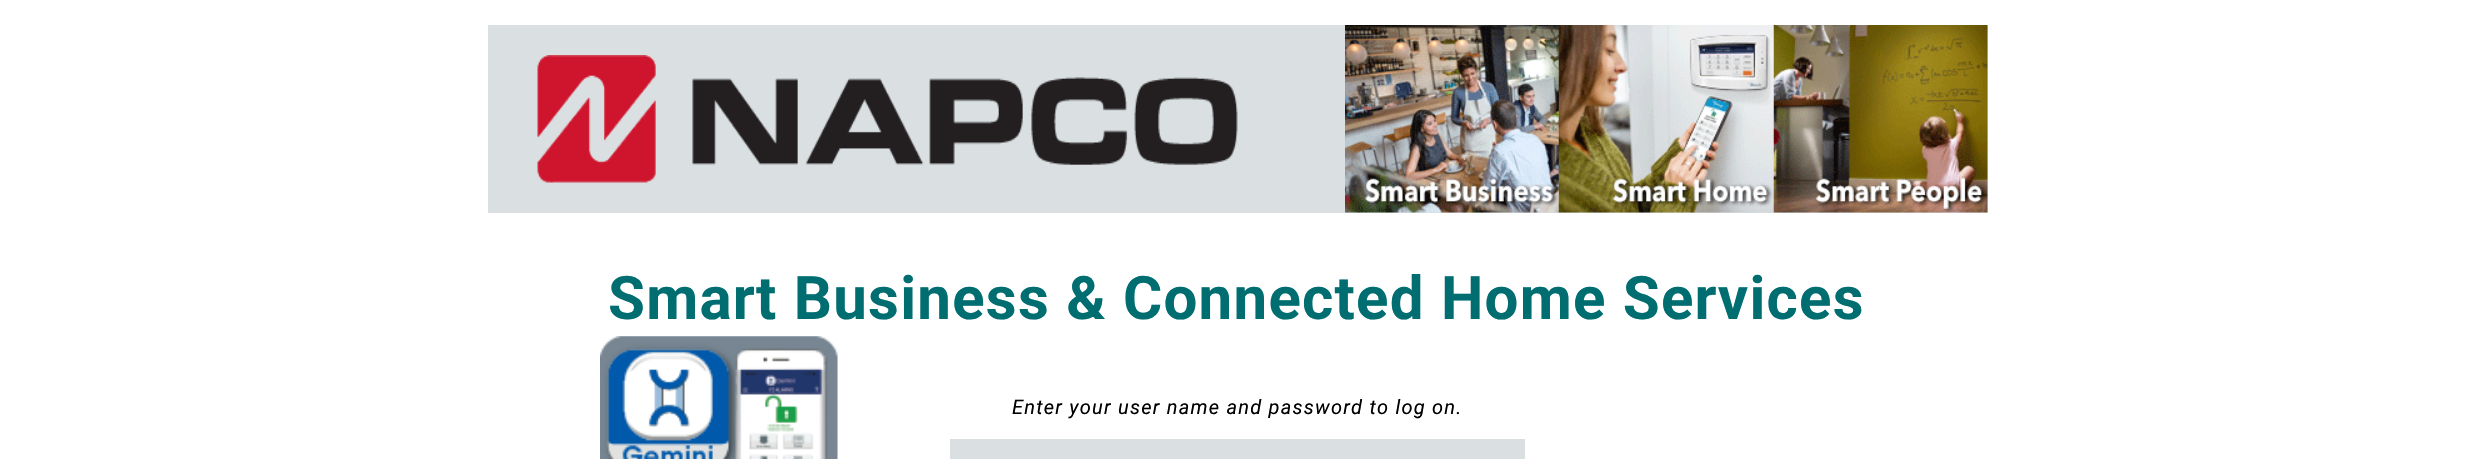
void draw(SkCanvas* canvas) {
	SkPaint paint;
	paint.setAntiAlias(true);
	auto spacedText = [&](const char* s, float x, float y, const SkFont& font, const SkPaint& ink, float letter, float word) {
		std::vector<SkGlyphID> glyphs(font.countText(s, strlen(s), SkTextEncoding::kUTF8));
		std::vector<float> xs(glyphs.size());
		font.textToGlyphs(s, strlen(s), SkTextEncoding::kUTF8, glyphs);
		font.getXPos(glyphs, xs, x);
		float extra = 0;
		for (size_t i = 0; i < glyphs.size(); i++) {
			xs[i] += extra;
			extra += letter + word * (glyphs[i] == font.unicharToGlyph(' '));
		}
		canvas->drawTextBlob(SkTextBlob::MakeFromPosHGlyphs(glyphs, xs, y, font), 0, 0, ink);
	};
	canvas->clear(0xffffffff);
	paint.setColor(0xffdae0e2);
	canvas->drawRect(SkRect::MakeXYWH(488, 25, 1500, 188), paint);
	canvas->drawImageRect(SkImages::DeferredFromEncodedData(SkData::MakeFromFileName("img1.png")), SkRect::MakeXYWH(537, 55, 701, 128), SkSamplingOptions());
	canvas->drawImageRect(SkImages::DeferredFromEncodedData(SkData::MakeFromFileName("img2.png")), SkRect::MakeXYWH(1345, 25, 643, 188), SkSamplingOptions());
	SkFont f1(fontMgr->matchFamilyStyle("Roboto", SkFontStyle::Bold()), 60);
	f1.setSubpixel(true);
	paint.setColor(0xff006d71);
	spacedText("Smart Business & Connected Home Services", 608, 319, f1, paint, 1.25, 0);
	canvas->drawImageRect(SkImages::DeferredFromEncodedData(SkData::MakeFromFileName("img3.png")), SkRect::MakeXYWH(600, 336, 238, 123), SkSamplingOptions());
	SkFont f2(fontMgr->matchFamilyStyle("Roboto", SkFontStyle::Italic()), 20);
	f2.setSubpixel(true);
	paint.setColor(0xff000000);
	spacedText("Enter your user name and password to log on.", 1012, 414, f2, paint, 1.25, 0);
	paint.setColor(0xffdae0e2);
	canvas->drawRect(SkRect::MakeXYWH(950, 439, 575, 20), paint);
}
